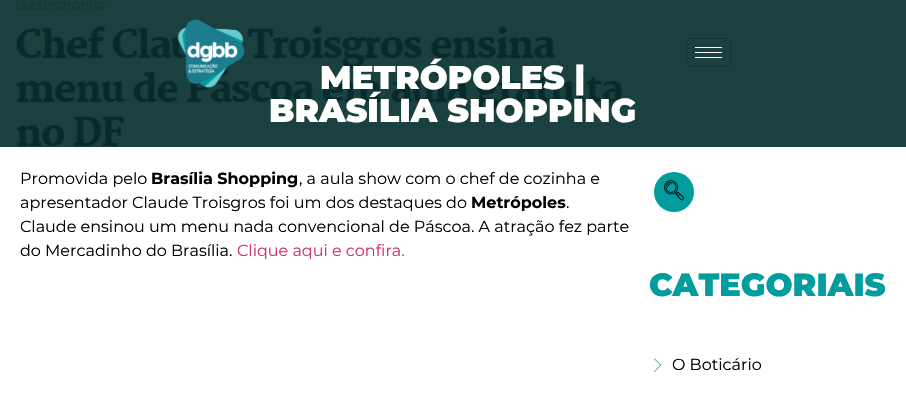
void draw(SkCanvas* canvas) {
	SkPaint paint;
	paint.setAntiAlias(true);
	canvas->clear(0xffffffff);
	paint.setColor(0xff1a4040);
	canvas->drawRect(SkRect::MakeXYWH(0, 0, 906, 147), paint);
	canvas->drawImageRect(SkImages::DeferredFromEncodedData(SkData::MakeFromFileName("img2.png")), SkRect::MakeXYWH(14, 0, 611, 147), SkSamplingOptions());
	canvas->drawImageRect(SkImages::DeferredFromEncodedData(SkData::MakeFromFileName("img1.png")), SkRect::MakeXYWH(177, 19, 68, 69), SkSamplingOptions());
	paint.setStroke(true);
	paint.setStrokeWidth(1);
	paint.setColor(0xff153333);
	canvas->drawRoundRect(SkRect::MakeXYWH(686.5, 38.5, 44, 28), 2.5, 2.5, paint);
	paint.setStroke(false);
	paint.setColor(0xffffffff);
	canvas->drawRect(SkRect::MakeXYWH(695, 47, 27, 1), paint);
	canvas->drawRect(SkRect::MakeXYWH(695, 52, 27, 1), paint);
	canvas->drawRect(SkRect::MakeXYWH(695, 57, 27, 1), paint);
	SkFont f1(fontMgr->matchFamilyStyle("Montserrat", SkFontStyle(900, SkFontStyle::kNormal_Width, SkFontStyle::kUpright_Slant)), 33);
	f1.setSubpixel(true);
	canvas->drawString("METRÓPOLES |", 320, 89, f1, paint);
	canvas->drawString("BRASÍLIA SHOPPING", 269, 122, f1, paint);
	SkFont f2(fontMgr->matchFamilyStyle("Montserrat", SkFontStyle::Normal()), 16);
	f2.setSubpixel(true);
	paint.setColor(0xff000000);
	canvas->drawString("Promovida pelo", 20, 184, f2, paint);
	SkFont f3(fontMgr->matchFamilyStyle("Montserrat", SkFontStyle::Bold()), 16);
	f3.setSubpixel(true);
	canvas->drawString("Brasília Shopping", 151, 184, f3, paint);
	canvas->drawString(", a aula show com o chef de cozinha e", 299, 184, f2, paint);
	canvas->drawString("apresentador Claude Troisgros foi um dos destaques do", 20, 208, f2, paint);
	canvas->drawString("Metrópoles", 471, 208, f3, paint);
	canvas->drawString(".", 566, 208, f2, paint);
	canvas->drawString("Claude ensinou um menu nada convencional de Páscoa. A atração fez parte", 20, 232, f2, paint);
	canvas->drawString("do Mercadinho do Brasília.", 20, 256, f2, paint);
	paint.setColor(0xffcc3366);
	canvas->drawString("Clique aqui e confira.", 237, 256, f2, paint);
	paint.setColor(0xff009c9e);
	canvas->drawCircle(674, 192, 20, paint);
	canvas->drawImageRect(SkImages::DeferredFromEncodedData(SkData::MakeFromFileName("img3.png")), SkRect::MakeXYWH(664, 180, 20, 21), SkSamplingOptions());
	SkFont f4(fontMgr->matchFamilyStyle("Montserrat", SkFontStyle(900, SkFontStyle::kNormal_Width, SkFontStyle::kUpright_Slant)), 32);
	f4.setSubpixel(true);
	canvas->drawString("CATEGORIAIS", 649, 296, f4, paint);
	canvas->drawImageRect(SkImages::DeferredFromEncodedData(SkData::MakeFromFileName("img4.png")), SkRect::MakeXYWH(654, 358, 8, 14), SkSamplingOptions());
	paint.setColor(0xff000000);
	canvas->drawString("O Boticário", 672, 370, f2, paint);
}
